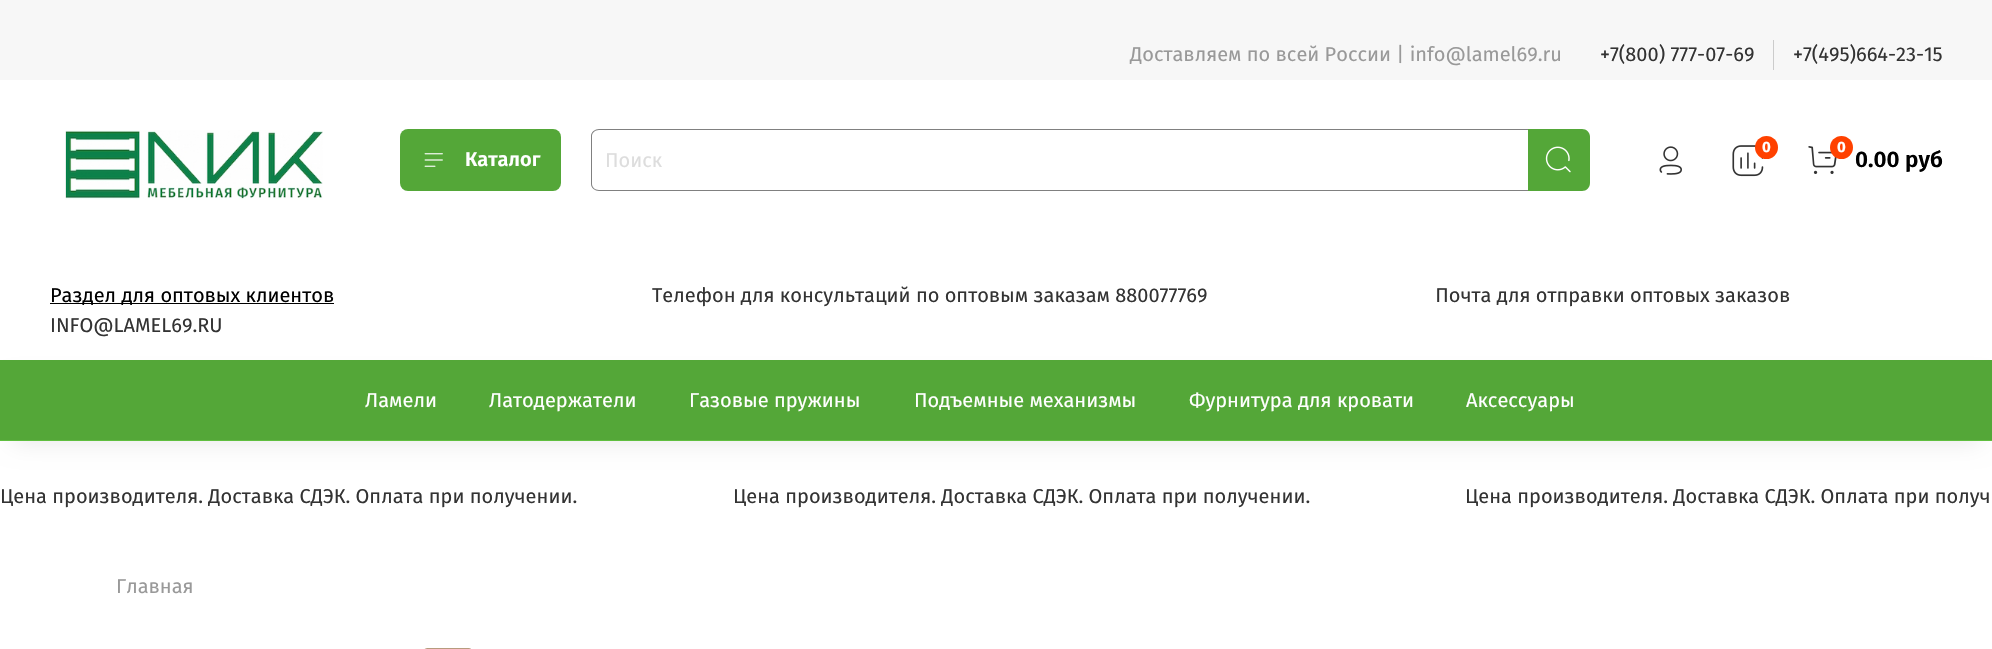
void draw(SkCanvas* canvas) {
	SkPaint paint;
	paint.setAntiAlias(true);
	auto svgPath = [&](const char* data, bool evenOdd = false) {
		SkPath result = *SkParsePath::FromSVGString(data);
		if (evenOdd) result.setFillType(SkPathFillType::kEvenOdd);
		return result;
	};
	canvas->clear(0xffffffff);
	paint.setColor(0xfff7f7f7);
	canvas->drawRect(SkRect::MakeXYWH(0, 0, 1992, 80), paint);
	SkFont f1(fontMgr->matchFamilyStyle("Fira Sans", SkFontStyle::Normal()), 20);
	f1.setSubpixel(true);
	paint.setColor(0xff999999);
	canvas->drawString("Доставляем по всей России | info@lamel69.ru", 1130, 61, f1, paint);
	paint.setColor(0xffcccccc);
	canvas->drawRect(SkRect::MakeXYWH(1773, 40, 1, 30), paint);
	paint.setColor(0xff333333);
	canvas->drawString("+7(800) 777-07-69", 1600, 61, f1, paint);
	canvas->drawString("+7(495)664-23-15", 1793, 61, f1, paint);
	canvas->drawImageRect(SkImages::DeferredFromEncodedData(SkData::MakeFromFileName("img1.png")), SkRect::MakeXYWH(65, 130, 258, 70), SkSamplingOptions());
	paint.setColor(0xff54a738);
	canvas->drawRoundRect(SkRect::MakeXYWH(400, 129, 161, 62), 8, 8, paint);
	canvas->drawImageRect(SkImages::DeferredFromEncodedData(SkData::MakeFromFileName("img2.png")), SkRect::MakeXYWH(424, 153, 19, 14), SkSamplingOptions());
	SkFont f2(fontMgr->matchFamilyStyle("Fira Sans", SkFontStyle(600, SkFontStyle::kNormal_Width, SkFontStyle::kUpright_Slant)), 20);
	f2.setSubpixel(true);
	paint.setColor(0xffffffff);
	canvas->drawString("Каталог", 465, 166, f2, paint);
	paint.setColor(0xff808080);
	canvas->drawPath(svgPath("M599 129H1528V191H599C595 191 591 188 591 184V136C591 132 595 129 599 129ZM599 130H1528V190H599C595 190 592 187 592 184V136C592 133 595 130 599 130Z", true), paint);
	paint.setColor(0xffdddddd);
	canvas->drawString("Поиск", 605, 167, f1, paint);
	paint.setColor(0xff54a738);
	canvas->drawPath(svgPath("M1528 129H1582C1586.5 129 1590 132.5 1590 137V183C1590 187.5 1586.5 191 1582 191H1528Z"), paint);
	canvas->drawImageRect(SkImages::DeferredFromEncodedData(SkData::MakeFromFileName("img3.png")), SkRect::MakeXYWH(1545, 146, 26, 27), SkSamplingOptions());
	canvas->drawImageRect(SkImages::DeferredFromEncodedData(SkData::MakeFromFileName("img4.png")), SkRect::MakeXYWH(1659, 146, 23, 29), SkSamplingOptions());
	canvas->drawImageRect(SkImages::DeferredFromEncodedData(SkData::MakeFromFileName("img5.png")), SkRect::MakeXYWH(1732, 145, 32, 32), SkSamplingOptions());
	paint.setColor(0xffff4100);
	canvas->drawCircle(1766.5, 147.5, 11.5, paint);
	SkFont f3(fontMgr->matchFamilyStyle("Fira Sans", SkFontStyle::Bold()), 15);
	f3.setSubpixel(true);
	paint.setColor(0xffffffff);
	canvas->drawString("0", 1762, 152, f3, paint);
	canvas->drawImageRect(SkImages::DeferredFromEncodedData(SkData::MakeFromFileName("img6.png")), SkRect::MakeXYWH(1808, 146, 29, 28), SkSamplingOptions());
	paint.setColor(0xffff4100);
	canvas->drawCircle(1841.5, 147.5, 11.5, paint);
	paint.setColor(0xffffffff);
	canvas->drawString("0", 1837, 152, f3, paint);
	SkFont f4(fontMgr->matchFamilyStyle("Fira Sans", SkFontStyle(600, SkFontStyle::kNormal_Width, SkFontStyle::kUpright_Slant)), 22.5);
	f4.setSubpixel(true);
	paint.setColor(0xff000000);
	canvas->drawString("0.00 руб", 1855, 167, f4, paint);
	canvas->drawRect(SkRect::MakeXYWH(50, 303, 284, 1), paint);
	canvas->drawString("Раздел для оптовых клиентов", 50, 302, f1, paint);
	paint.setColor(0xff333333);
	canvas->drawString("Телефон для консультаций по оптовым заказам 880077769                                           Почта для отправки оптовых заказов", 652, 302, f1, paint);
	canvas->drawString("INFO@LAMEL69.RU", 50, 332, f1, paint);
	paint.setColor(0x1a000000);
	paint.setMaskFilter(SkMaskFilter::MakeBlur(kNormal_SkBlurStyle, 12.5));
	canvas->drawRect(SkRect::MakeXYWH(13, 385, 1967, 56), paint);
	paint.setMaskFilter(nullptr);
	paint.setColor(0xff54a738);
	canvas->drawRect(SkRect::MakeXYWH(0, 360, 1992, 80), paint);
	paint.setColor(0xff5fbe3f);
	canvas->drawRect(SkRect::MakeXYWH(0, 440, 1992, 1), paint);
	paint.setColor(0xffffffff);
	canvas->drawString("Ламели", 365, 407, f1, paint);
	canvas->drawString("Латодержатели", 489, 407, f1, paint);
	canvas->drawString("Газовые пружины", 689, 407, f1, paint);
	canvas->drawString("Подъемные механизмы", 914, 407, f1, paint);
	canvas->drawString("Фурнитура для кровати", 1189, 407, f1, paint);
	canvas->drawString("Аксессуары", 1466, 407, f1, paint);
	paint.setColor(0xff333333);
	canvas->drawString("Цена производителя. Доставка СДЭК. Оплата при получении.", 0, 503, f1, paint);
	canvas->drawString("Цена производителя. Доставка СДЭК. Оплата при получении.", 733, 503, f1, paint);
	canvas->drawString("Цена производителя. Доставка СДЭК. Оплата при получ", 1465, 503, f1, paint);
	paint.setColor(0xff999999);
	canvas->drawString("Главная", 116, 593, f1, paint);
	paint.setColor(0xffb79b7e);
	canvas->drawRoundRect(SkRect::MakeXYWH(423, 648, 50, 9), 8, 8, paint);
}
